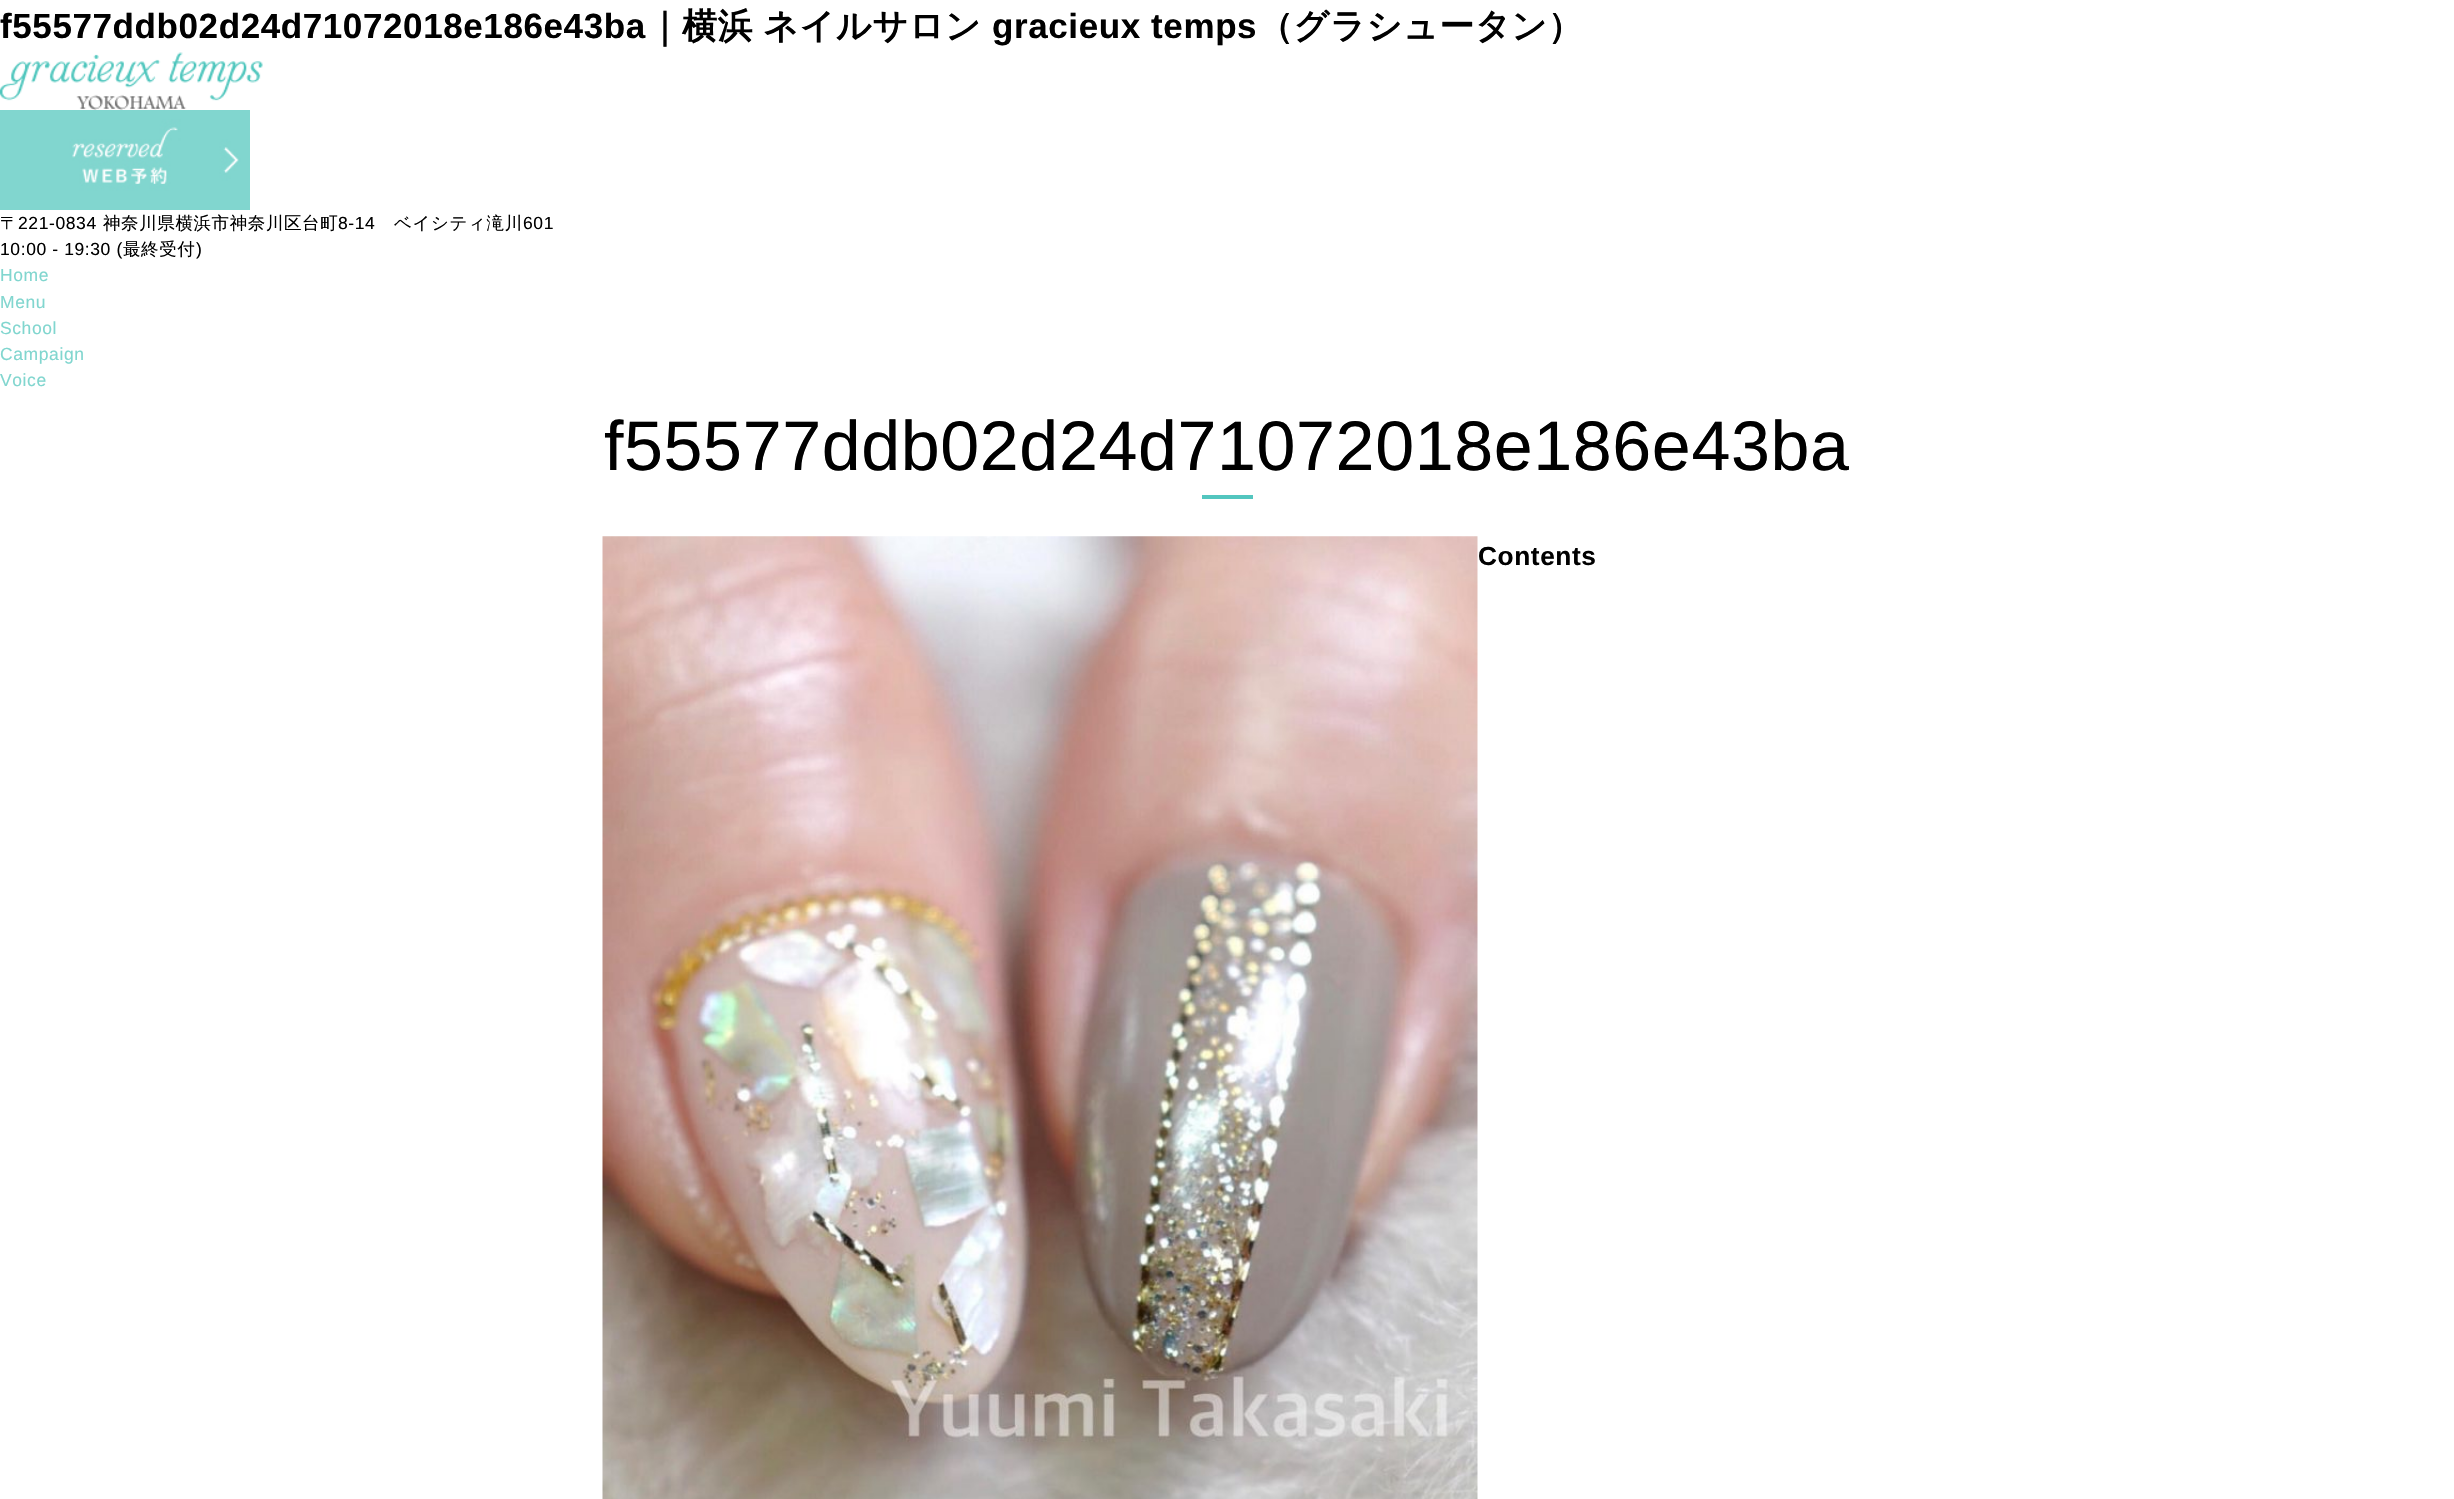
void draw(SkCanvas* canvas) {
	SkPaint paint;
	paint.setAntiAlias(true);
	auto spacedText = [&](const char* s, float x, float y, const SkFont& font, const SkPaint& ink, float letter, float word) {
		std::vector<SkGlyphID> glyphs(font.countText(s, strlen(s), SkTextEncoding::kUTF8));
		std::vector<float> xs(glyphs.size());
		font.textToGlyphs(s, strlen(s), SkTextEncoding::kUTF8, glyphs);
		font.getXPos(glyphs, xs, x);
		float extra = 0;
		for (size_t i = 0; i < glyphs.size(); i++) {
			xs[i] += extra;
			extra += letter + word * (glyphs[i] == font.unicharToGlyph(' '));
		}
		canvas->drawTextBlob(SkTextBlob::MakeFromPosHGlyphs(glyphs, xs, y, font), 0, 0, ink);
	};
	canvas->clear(0xffffffff);
	SkFont f1(fontMgr->matchFamilyStyle("Liberation Sans", SkFontStyle::Bold()), 35);
	f1.setSubpixel(true);
	paint.setColor(0xff000000);
	spacedText("f55577ddb02d24d71072018e186e43ba", 0, 38, f1, paint, 0.6, 0);
	SkFont f2(fontMgr->matchFamilyStyle("WenQuanYi Zen Hei", SkFontStyle::Bold()), 35);
	f2.setSubpixel(true);
	spacedText("｜横浜", 647, 38, f2, paint, 0.6, 0);
	spacedText("ネイルサロン", 763, 38, f2, paint, 0.6, 0);
	spacedText("gracieux temps", 992, 38, f1, paint, 0.6, 0);
	spacedText("（グラシュータン）", 1258, 38, f2, paint, 0.6, 0);
	canvas->drawImageRect(SkImages::DeferredFromEncodedData(SkData::MakeFromFileName("img1.png")), SkRect::MakeXYWH(0, 52, 263, 58), SkSamplingOptions());
	canvas->drawImageRect(SkImages::DeferredFromEncodedData(SkData::MakeFromFileName("img2.png")), SkRect::MakeXYWH(0, 110, 250, 100), SkSamplingOptions());
	SkFont f3(fontMgr->matchFamilyStyle("WenQuanYi Zen Hei", SkFontStyle(500, SkFontStyle::kNormal_Width, SkFontStyle::kUpright_Slant)), 17.5);
	f3.setSubpixel(true);
	spacedText("〒", 0, 229, f3, paint, 0.6, 0);
	SkFont f4(fontMgr->matchFamilyStyle("Liberation Sans", SkFontStyle::Normal()), 17.5);
	f4.setSubpixel(true);
	spacedText("221-0834", 18, 229, f4, paint, 0.6, 0);
	spacedText("神奈川県横浜市神奈川区台町", 103, 229, f3, paint, 0.6, 0);
	spacedText("8-14", 338, 229, f4, paint, 0.6, 0);
	spacedText("ベイシティ滝川", 394, 229, f3, paint, 0.6, 0);
	spacedText("601", 523, 229, f4, paint, 0.6, 0);
	spacedText("10:00 - 19:30 (", 0, 255, f4, paint, 0.6, 0);
	spacedText("最終受付", 123, 255, f3, paint, 0.6, 0);
	spacedText(")", 196, 255, f4, paint, 0.6, 0);
	paint.setColor(0xff81d6cf);
	spacedText("Home", 0, 281, f4, paint, 0.6, 0);
	spacedText("Menu", 0, 308, f4, paint, 0.6, 0);
	spacedText("School", 0, 334, f4, paint, 0.6, 0);
	spacedText("Campaign", 0, 360, f4, paint, 0.6, 0);
	spacedText("Voice", 0, 386, f4, paint, 0.6, 0);
	paint.setColor(0xff53c6bf);
	canvas->drawRect(SkRect::MakeXYWH(1202, 495, 51, 4), paint);
	SkFont f5(fontMgr->matchFamilyStyle("Liberation Sans", SkFontStyle::Normal()), 70);
	f5.setSubpixel(true);
	paint.setColor(0xff000000);
	spacedText("f55577ddb02d24d71072018e186e43ba", 604, 470, f5, paint, 0.6, 0);
	canvas->drawImageRect(SkImages::DeferredFromEncodedData(SkData::MakeFromFileName("img3.png")), SkRect::MakeXYWH(602, 536, 876, 963), SkSamplingOptions());
	SkFont f6(fontMgr->matchFamilyStyle("Liberation Sans", SkFontStyle::Bold()), 26.25);
	f6.setSubpixel(true);
	spacedText("Contents", 1478, 565, f6, paint, 0.6, 0);
}
